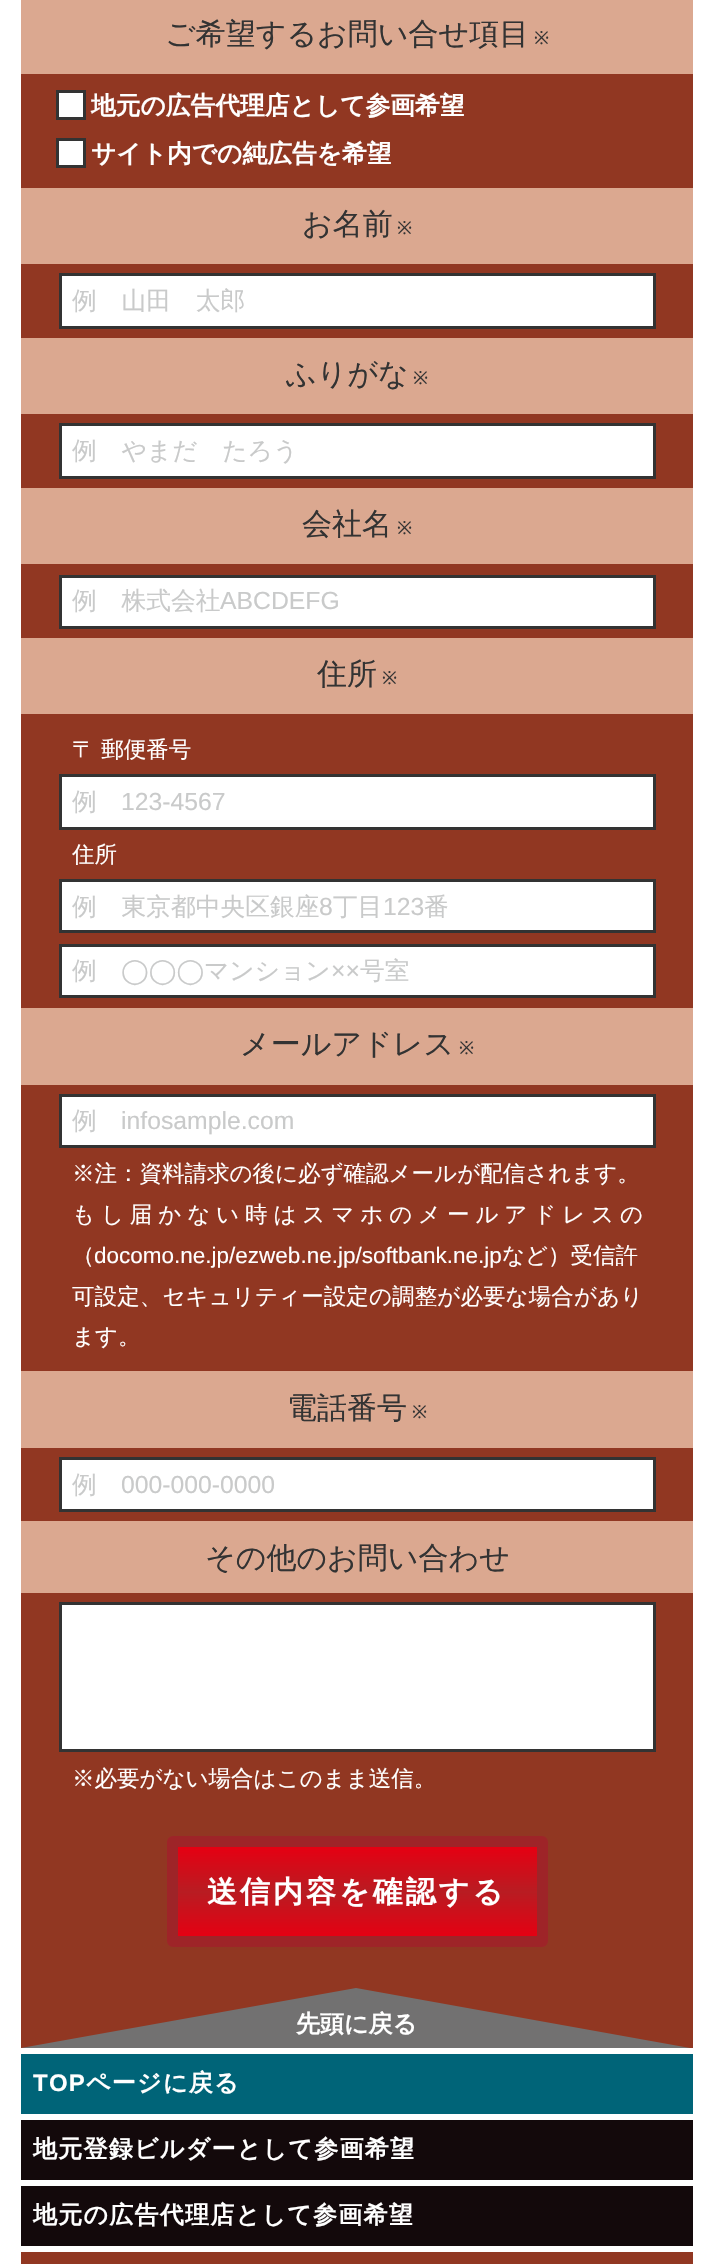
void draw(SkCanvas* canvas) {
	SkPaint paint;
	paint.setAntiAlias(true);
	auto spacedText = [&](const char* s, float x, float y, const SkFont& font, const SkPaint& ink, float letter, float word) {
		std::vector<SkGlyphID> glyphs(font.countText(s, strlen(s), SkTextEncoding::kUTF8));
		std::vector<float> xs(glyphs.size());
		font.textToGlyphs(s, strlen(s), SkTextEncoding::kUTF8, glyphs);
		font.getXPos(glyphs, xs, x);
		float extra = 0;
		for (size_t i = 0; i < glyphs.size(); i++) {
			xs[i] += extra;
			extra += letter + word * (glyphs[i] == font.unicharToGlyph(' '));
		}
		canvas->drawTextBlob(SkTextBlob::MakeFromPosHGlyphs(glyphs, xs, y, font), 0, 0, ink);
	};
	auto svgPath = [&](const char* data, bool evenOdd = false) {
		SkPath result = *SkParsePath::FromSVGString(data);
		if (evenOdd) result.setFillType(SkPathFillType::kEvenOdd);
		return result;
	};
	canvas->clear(0xffffffff);
	paint.setColor(0xff913722);
	canvas->drawRect(SkRect::MakeXYWH(21, 74, 672, 1974), paint);
	paint.setColor(0xffdba890);
	canvas->drawRect(SkRect::MakeXYWH(21, 0, 672, 74), paint);
	SkFont f1(fontMgr->matchFamilyStyle("WenQuanYi Zen Hei", SkFontStyle(500, SkFontStyle::kNormal_Width, SkFontStyle::kUpright_Slant)), 30);
	f1.setSubpixel(true);
	paint.setColor(0xff333333);
	canvas->drawString("ご希望するお問い合せ項目", 165, 44, f1, paint);
	SkFont f2(fontMgr->matchFamilyStyle("Noto Sans", SkFontStyle::Normal()), 18);
	f2.setSubpixel(true);
	canvas->drawString("※", 534, 44, f2, paint);
	paint.setColor(0xffffffff);
	canvas->drawRect(SkRect::MakeXYWH(57.5, 91.5, 27, 27), paint);
	paint.setStroke(true);
	paint.setStrokeWidth(3);
	paint.setColor(0xff333333);
	canvas->drawRect(SkRect::MakeXYWH(57.5, 91.5, 27, 27), paint);
	SkFont f3(fontMgr->matchFamilyStyle("WenQuanYi Zen Hei", SkFontStyle::Bold()), 24.75);
	f3.setSubpixel(true);
	paint.setStroke(false);
	paint.setColor(0xffffffff);
	canvas->drawString("地元の広告代理店として参画希望", 91, 114, f3, paint);
	canvas->drawRect(SkRect::MakeXYWH(57.5, 139.5, 27, 27), paint);
	paint.setStroke(true);
	paint.setColor(0xff333333);
	canvas->drawRect(SkRect::MakeXYWH(57.5, 139.5, 27, 27), paint);
	paint.setStroke(false);
	paint.setColor(0xffffffff);
	canvas->drawString("サイト内での純広告を希望", 91, 162, f3, paint);
	paint.setColor(0xffdba890);
	canvas->drawRect(SkRect::MakeXYWH(21, 188, 672, 76), paint);
	paint.setColor(0xff333333);
	canvas->drawString("お名前", 302, 234, f1, paint);
	canvas->drawString("※", 397, 234, f2, paint);
	paint.setColor(0xffffffff);
	canvas->drawRect(SkRect::MakeXYWH(60.5, 274.5, 594, 53), paint);
	paint.setStroke(true);
	paint.setColor(0xff333333);
	canvas->drawRect(SkRect::MakeXYWH(60.5, 274.5, 594, 53), paint);
	SkFont f4(fontMgr->matchFamilyStyle("WenQuanYi Zen Hei", SkFontStyle(500, SkFontStyle::kNormal_Width, SkFontStyle::kUpright_Slant)), 24.75);
	f4.setSubpixel(true);
	paint.setStroke(false);
	paint.setColor(0xffc9caca);
	canvas->drawString("例　山田　太郎", 72, 309, f4, paint);
	paint.setColor(0xffdba890);
	canvas->drawRect(SkRect::MakeXYWH(21, 338, 672, 76), paint);
	paint.setColor(0xff333333);
	canvas->drawString("ふりがな", 286, 384, f1, paint);
	canvas->drawString("※", 413, 384, f2, paint);
	paint.setColor(0xffffffff);
	canvas->drawRect(SkRect::MakeXYWH(60.5, 424.5, 594, 53), paint);
	paint.setStroke(true);
	paint.setColor(0xff333333);
	canvas->drawRect(SkRect::MakeXYWH(60.5, 424.5, 594, 53), paint);
	paint.setStroke(false);
	paint.setColor(0xffc9caca);
	canvas->drawString("例　やまだ　たろう", 72, 459, f4, paint);
	paint.setColor(0xffdba890);
	canvas->drawRect(SkRect::MakeXYWH(21, 488, 672, 76), paint);
	paint.setColor(0xff333333);
	canvas->drawString("会社名", 302, 534, f1, paint);
	canvas->drawString("※", 397, 534, f2, paint);
	paint.setColor(0xffffffff);
	canvas->drawRect(SkRect::MakeXYWH(60.5, 576.5, 594, 51), paint);
	paint.setStroke(true);
	paint.setColor(0xff333333);
	canvas->drawRect(SkRect::MakeXYWH(60.5, 576.5, 594, 51), paint);
	paint.setStroke(false);
	paint.setColor(0xffc9caca);
	canvas->drawString("例　株式会社", 72, 609, f4, paint);
	SkFont f5(fontMgr->matchFamilyStyle("Liberation Sans", SkFontStyle::Normal()), 24.75);
	f5.setSubpixel(true);
	canvas->drawString("ABCDEFG", 220, 609, f5, paint);
	paint.setColor(0xffdba890);
	canvas->drawRect(SkRect::MakeXYWH(21, 638, 672, 76), paint);
	paint.setColor(0xff333333);
	canvas->drawString("住所", 317, 684, f1, paint);
	canvas->drawString("※", 382, 684, f2, paint);
	SkFont f6(fontMgr->matchFamilyStyle("WenQuanYi Zen Hei", SkFontStyle(500, SkFontStyle::kNormal_Width, SkFontStyle::kUpright_Slant)), 22.5);
	f6.setSubpixel(true);
	paint.setColor(0xffffffff);
	canvas->drawString("〒 郵便番号", 72, 757, f6, paint);
	canvas->drawRect(SkRect::MakeXYWH(60.5, 775.5, 594, 53), paint);
	paint.setStroke(true);
	paint.setColor(0xff333333);
	canvas->drawRect(SkRect::MakeXYWH(60.5, 775.5, 594, 53), paint);
	paint.setStroke(false);
	paint.setColor(0xffc9caca);
	canvas->drawString("例", 72, 810, f4, paint);
	canvas->drawString("123-4567", 121, 810, f5, paint);
	paint.setColor(0xffffffff);
	canvas->drawString("住所", 72, 862, f6, paint);
	canvas->drawRect(SkRect::MakeXYWH(60.5, 880.5, 594, 51), paint);
	paint.setStroke(true);
	paint.setColor(0xff333333);
	canvas->drawRect(SkRect::MakeXYWH(60.5, 880.5, 594, 51), paint);
	paint.setStroke(false);
	paint.setColor(0xffc9caca);
	canvas->drawString("例　東京都中央区銀座", 72, 915, f4, paint);
	canvas->drawString("8", 319, 915, f5, paint);
	canvas->drawString("丁目", 333, 915, f4, paint);
	canvas->drawString("123", 383, 915, f5, paint);
	canvas->drawString("番", 424, 915, f4, paint);
	paint.setColor(0xffffffff);
	canvas->drawRect(SkRect::MakeXYWH(60.5, 945.5, 594, 51), paint);
	paint.setStroke(true);
	paint.setColor(0xff333333);
	canvas->drawRect(SkRect::MakeXYWH(60.5, 945.5, 594, 51), paint);
	paint.setStroke(false);
	paint.setColor(0xffc9caca);
	canvas->drawString("例", 72, 979, f4, paint);
	SkFont f7(fontMgr->matchFamilyStyle("DejaVu Sans", SkFontStyle::Normal()), 24.75);
	f7.setSubpixel(true);
	canvas->drawString("◯◯◯", 121, 979, f7, paint);
	canvas->drawString("マンション", 204, 979, f4, paint);
	canvas->drawString("××", 331, 979, f5, paint);
	canvas->drawString("号室", 360, 979, f4, paint);
	paint.setColor(0xffdba890);
	canvas->drawRect(SkRect::MakeXYWH(21, 1008, 672, 77), paint);
	paint.setColor(0xff333333);
	canvas->drawString("メールアドレス", 240, 1054, f1, paint);
	canvas->drawString("※", 459, 1054, f2, paint);
	paint.setColor(0xffffffff);
	canvas->drawRect(SkRect::MakeXYWH(60.5, 1095.5, 594, 51), paint);
	paint.setStroke(true);
	paint.setColor(0xff333333);
	canvas->drawRect(SkRect::MakeXYWH(60.5, 1095.5, 594, 51), paint);
	paint.setStroke(false);
	paint.setColor(0xffc9caca);
	canvas->drawString("例", 72, 1129, f4, paint);
	canvas->drawString("infosample.com", 121, 1129, f5, paint);
	paint.setColor(0xffffffff);
	canvas->drawString("※注：資料請求の後に必ず確認メールが配信されます。", 72, 1181, f6, paint);
	spacedText("もし届かない時はスマホのメールアドレスの", 72, 1222, f6, paint, 5.9, 0);
	canvas->drawString("（", 72, 1263, f6, paint);
	SkFont f8(fontMgr->matchFamilyStyle("Liberation Sans", SkFontStyle::Normal()), 22.5);
	f8.setSubpixel(true);
	canvas->drawString("docomo.ne.jp/ezweb.ne.jp/softbank.ne.jp", 94, 1263, f8, paint);
	canvas->drawString("など）受信許", 502, 1263, f6, paint);
	spacedText("可設定、セキュリティー設定の調整が必要な場合があり", 72, 1304, f6, paint, 0.1, 0);
	canvas->drawString("ます。", 72, 1344, f6, paint);
	paint.setColor(0xffdba890);
	canvas->drawRect(SkRect::MakeXYWH(21, 1371, 672, 77), paint);
	paint.setColor(0xff333333);
	canvas->drawString("電話番号", 287, 1418, f1, paint);
	canvas->drawString("※", 412, 1418, f2, paint);
	paint.setColor(0xffffffff);
	canvas->drawRect(SkRect::MakeXYWH(60.5, 1458.5, 594, 52), paint);
	paint.setStroke(true);
	paint.setColor(0xff333333);
	canvas->drawRect(SkRect::MakeXYWH(60.5, 1458.5, 594, 52), paint);
	paint.setStroke(false);
	paint.setColor(0xffc9caca);
	canvas->drawString("例", 72, 1493, f4, paint);
	canvas->drawString("000-000-0000", 121, 1493, f5, paint);
	paint.setColor(0xffdba890);
	canvas->drawRect(SkRect::MakeXYWH(21, 1521, 672, 72), paint);
	paint.setColor(0xff333333);
	canvas->drawString("その他のお問い合わせ", 205, 1568, f1, paint);
	paint.setColor(0xffffffff);
	canvas->drawRect(SkRect::MakeXYWH(60.5, 1603.5, 594, 147), paint);
	paint.setStroke(true);
	paint.setColor(0xff333333);
	canvas->drawRect(SkRect::MakeXYWH(60.5, 1603.5, 594, 147), paint);
	paint.setStroke(false);
	paint.setColor(0xffffffff);
	canvas->drawString("※必要がない場合はこのまま送信。", 72, 1786, f6, paint);
	{
		const SkColor colors[] = {0xffe60012, 0xffb81c22, 0xffe60012};
		const float stops[] = {0, 0.5, 1};
		const SkPoint ends[] = {{357, 1847}, {357, 1937}};
		paint.setShader(SkGradientShader::MakeLinear(ends, colors, stops, 3, SkTileMode::kClamp));
		paint.setAlpha(255);
	}
	canvas->drawRect(SkRect::MakeXYWH(178, 1847, 359, 89), paint);
	paint.setStroke(true);
	paint.setStrokeWidth(11);
	paint.setShader(nullptr);
	paint.setColor(0xff9e2428);
	canvas->drawRoundRect(SkRect::MakeXYWH(172.5, 1841.5, 370, 100), 0.5, 0.5, paint);
	SkFont f9(fontMgr->matchFamilyStyle("WenQuanYi Zen Hei", SkFontStyle::Bold()), 30);
	f9.setSubpixel(true);
	paint.setStroke(false);
	paint.setColor(0xffffffff);
	spacedText("送信内容を確認する", 207, 1902, f9, paint, 3, 0);
	paint.setColor(0xff727171);
	canvas->drawPath(svgPath("M690 2048H21L356 1988Z"), paint);
	SkFont f10(fontMgr->matchFamilyStyle("WenQuanYi Zen Hei", SkFontStyle::Bold()), 24);
	f10.setSubpixel(true);
	paint.setColor(0xffffffff);
	canvas->drawString("先頭に戻る", 296, 2032, f10, paint);
	paint.setColor(0xff006478);
	canvas->drawRect(SkRect::MakeXYWH(21, 2054, 672, 60), paint);
	SkFont f11(fontMgr->matchFamilyStyle("Liberation Sans", SkFontStyle::Bold()), 24);
	f11.setSubpixel(true);
	paint.setColor(0xffffffff);
	spacedText("TOP", 33, 2091, f11, paint, 1.25, 0);
	spacedText("ページに戻る", 86, 2091, f10, paint, 1.25, 0);
	paint.setColor(0xff13090b);
	canvas->drawRect(SkRect::MakeXYWH(21, 2120, 672, 60), paint);
	paint.setColor(0xffffffff);
	spacedText("地元登録ビルダーとして参画希望", 33, 2157, f10, paint, 1.25, 0);
	paint.setColor(0xff13090b);
	canvas->drawRect(SkRect::MakeXYWH(21, 2186, 672, 60), paint);
	paint.setColor(0xffffffff);
	spacedText("地元の広告代理店として参画希望", 33, 2223, f10, paint, 1.25, 0);
	paint.setColor(0xff913722);
	canvas->drawRect(SkRect::MakeXYWH(21, 2252, 672, 12), paint);
}
